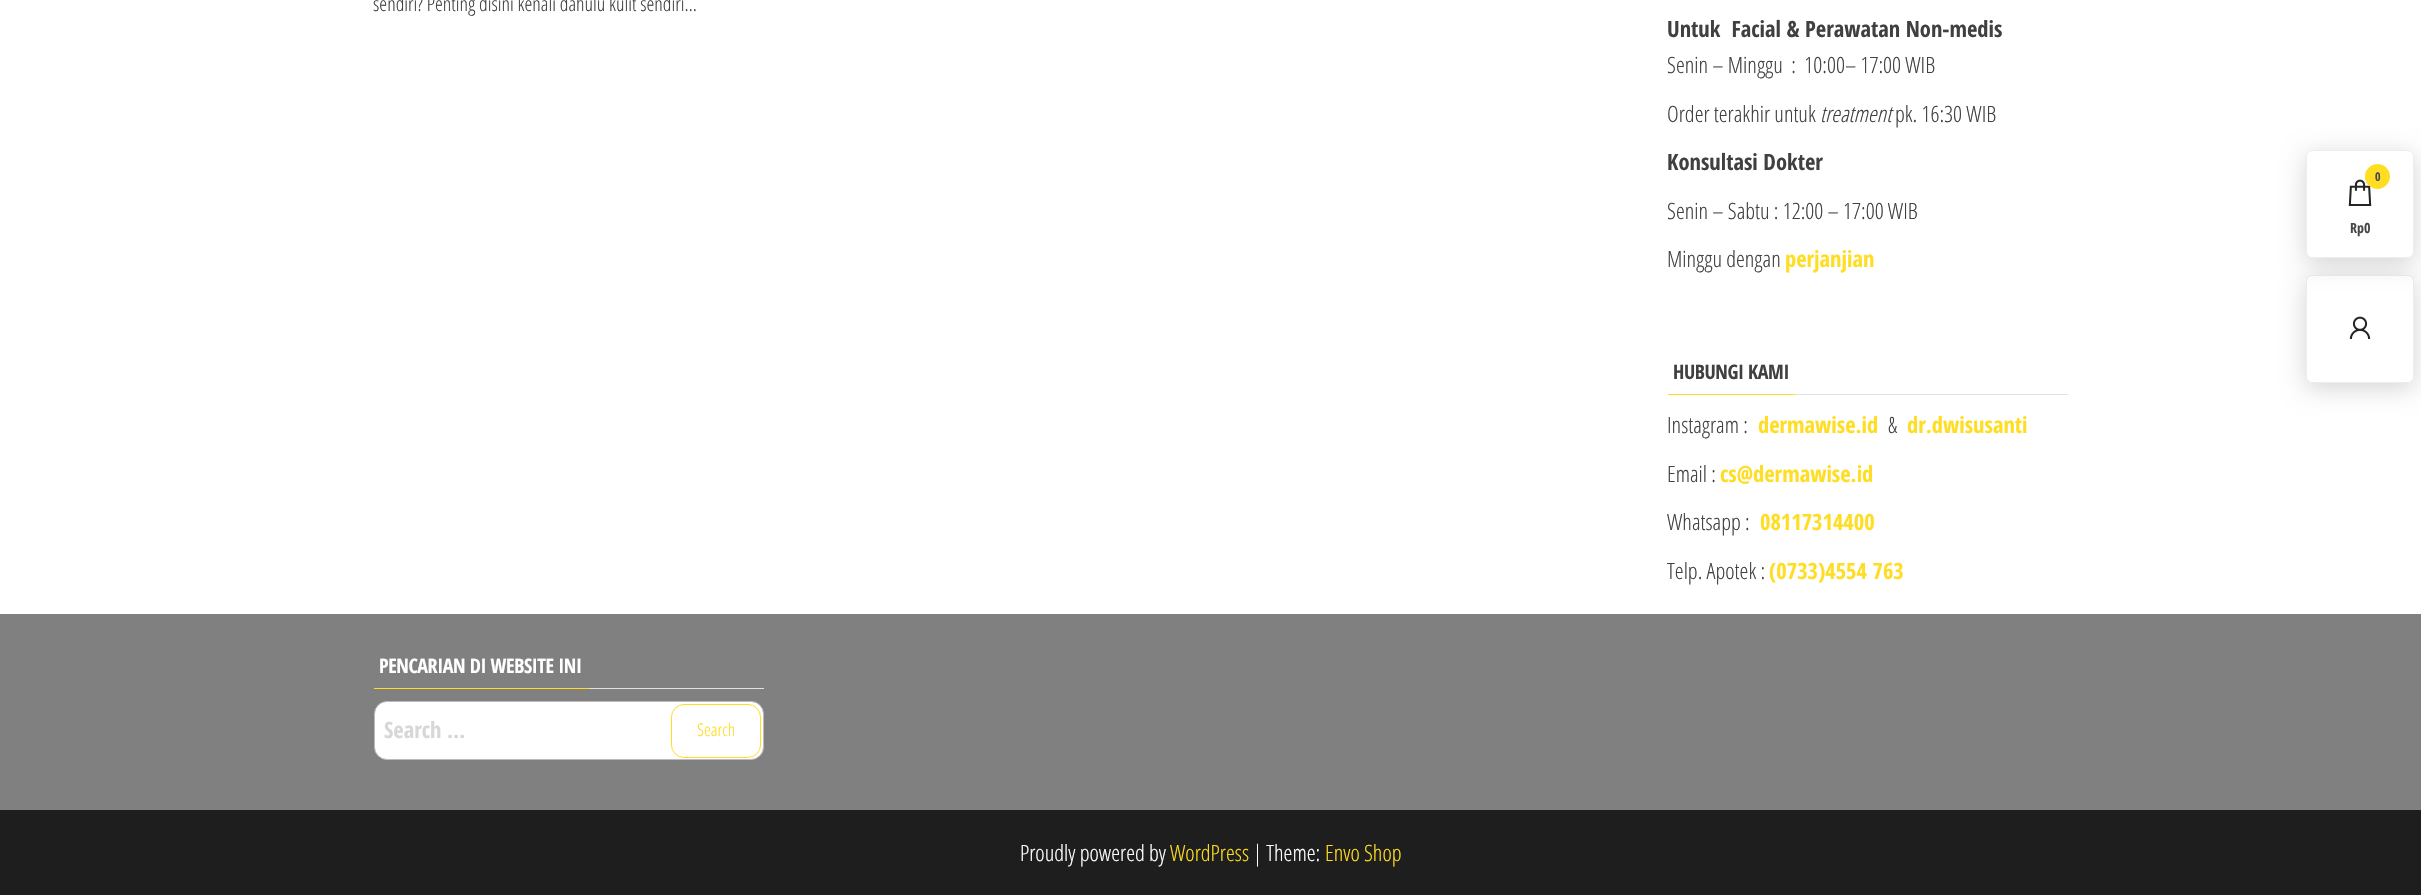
void draw(SkCanvas* canvas) {
	SkPaint paint;
	paint.setAntiAlias(true);
	auto spacedText = [&](const char* s, float x, float y, const SkFont& font, const SkPaint& ink, float letter, float word) {
		std::vector<SkGlyphID> glyphs(font.countText(s, strlen(s), SkTextEncoding::kUTF8));
		std::vector<float> xs(glyphs.size());
		font.textToGlyphs(s, strlen(s), SkTextEncoding::kUTF8, glyphs);
		font.getXPos(glyphs, xs, x);
		float extra = 0;
		for (size_t i = 0; i < glyphs.size(); i++) {
			xs[i] += extra;
			extra += letter + word * (glyphs[i] == font.unicharToGlyph(' '));
		}
		canvas->drawTextBlob(SkTextBlob::MakeFromPosHGlyphs(glyphs, xs, y, font), 0, 0, ink);
	};
	canvas->clear(0xffffffff);
	SkFont f1(fontMgr->matchFamilyStyle("Open Sans Condensed", SkFontStyle(300, SkFontStyle::kNormal_Width, SkFontStyle::kUpright_Slant)), 20);
	f1.setSubpixel(true);
	paint.setColor(0xff404040);
	canvas->drawString("sendiri? Penting disini kenali dahulu kulit sendiri…", 373, 11, f1, paint);
	SkFont f2(fontMgr->matchFamilyStyle("Open Sans Condensed", SkFontStyle::Bold()), 22.5);
	f2.setSubpixel(true);
	canvas->drawString("Untuk  Facial & Perawatan Non-medis", 1667, 37, f2, paint);
	SkFont f3(fontMgr->matchFamilyStyle("Open Sans Condensed", SkFontStyle(300, SkFontStyle::kNormal_Width, SkFontStyle::kUpright_Slant)), 22.5);
	f3.setSubpixel(true);
	canvas->drawString("Senin – Minggu  :  10:00– 17:00 WIB", 1667, 73, f3, paint);
	canvas->drawString("Order terakhir untuk", 1667, 122, f3, paint);
	SkFont f4(fontMgr->matchFamilyStyle("Open Sans Condensed", SkFontStyle(300, SkFontStyle::kNormal_Width, SkFontStyle::kItalic_Slant)), 22.5);
	f4.setSubpixel(true);
	canvas->drawString("treatment", 1820, 122, f4, paint);
	canvas->drawString("pk. 16:30 WIB", 1895, 122, f3, paint);
	canvas->drawString("Konsultasi Dokter", 1667, 170, f2, paint);
	canvas->drawString("Senin – Sabtu : 12:00 – 17:00 WIB", 1667, 219, f3, paint);
	canvas->drawString("Minggu dengan", 1667, 267, f3, paint);
	paint.setColor(0xffffdd22);
	canvas->drawString("perjanjian", 1785, 267, f2, paint);
	paint.setColor(0xffe2e2e2);
	canvas->drawRect(SkRect::MakeXYWH(1795, 394, 273, 1), paint);
	SkFont f5(fontMgr->matchFamilyStyle("Open Sans Condensed", SkFontStyle::Bold()), 20);
	f5.setSubpixel(true);
	paint.setColor(0xff404040);
	spacedText("HUBUNGI KAMI", 1673, 379, f5, paint, -0.4, 0);
	paint.setColor(0xffffdd22);
	canvas->drawRect(SkRect::MakeXYWH(1668, 394, 127, 1), paint);
	paint.setColor(0xff404040);
	canvas->drawString("Instagram :", 1667, 433, f3, paint);
	paint.setColor(0xffffdd22);
	canvas->drawString("dermawise.id", 1758, 433, f2, paint);
	paint.setColor(0xff404040);
	canvas->drawString("&", 1888, 433, f3, paint);
	paint.setColor(0xffffdd22);
	canvas->drawString("dr.dwisusanti", 1907, 433, f2, paint);
	paint.setColor(0xff404040);
	canvas->drawString("Email :", 1667, 482, f3, paint);
	paint.setColor(0xffffdd22);
	canvas->drawString("cs@dermawise.id", 1720, 482, f2, paint);
	paint.setColor(0xff404040);
	canvas->drawString("Whatsapp :", 1667, 530, f3, paint);
	paint.setColor(0xffffdd22);
	canvas->drawString("08117314400", 1760, 530, f2, paint);
	paint.setColor(0xff404040);
	canvas->drawString("Telp. Apotek :", 1667, 579, f3, paint);
	paint.setColor(0xffffdd22);
	canvas->drawString("(0733)4554 763", 1769, 579, f2, paint);
	paint.setColor(0x2b000000);
	paint.setMaskFilter(SkMaskFilter::MakeBlur(kNormal_SkBlurStyle, 12.5));
	canvas->drawRoundRect(SkRect::MakeXYWH(2306, 280, 108, 108), 6, 6, paint);
	paint.setMaskFilter(nullptr);
	paint.setColor(0xffffffff);
	canvas->drawRoundRect(SkRect::MakeXYWH(2306.5, 275.5, 107, 107), 5.5, 5.5, paint);
	paint.setStroke(true);
	paint.setStrokeWidth(1);
	paint.setColor(0xffededed);
	canvas->drawRoundRect(SkRect::MakeXYWH(2306.5, 275.5, 107, 107), 5.5, 5.5, paint);
	paint.setStroke(false);
	paint.setColor(0x2b000000);
	paint.setMaskFilter(SkMaskFilter::MakeBlur(kNormal_SkBlurStyle, 12.5));
	canvas->drawRoundRect(SkRect::MakeXYWH(2306, 155, 108, 108), 6, 6, paint);
	paint.setMaskFilter(nullptr);
	paint.setColor(0xffffffff);
	canvas->drawRoundRect(SkRect::MakeXYWH(2306.5, 150.5, 107, 107), 5.5, 5.5, paint);
	paint.setStroke(true);
	paint.setColor(0xffededed);
	canvas->drawRoundRect(SkRect::MakeXYWH(2306.5, 150.5, 107, 107), 5.5, 5.5, paint);
	canvas->drawImageRect(SkImages::DeferredFromEncodedData(SkData::MakeFromFileName("img1.png")), SkRect::MakeXYWH(2348, 179, 24, 27), SkSamplingOptions());
	paint.setStroke(false);
	paint.setColor(0xffffdd22);
	canvas->drawCircle(2377.5, 176.5, 12.5, paint);
	SkFont f6(fontMgr->matchFamilyStyle("Open Sans Condensed", SkFontStyle::Bold()), 12);
	f6.setSubpixel(true);
	paint.setColor(0xff484848);
	canvas->drawString("0", 2375, 181, f6, paint);
	SkFont f7(fontMgr->matchFamilyStyle("Open Sans Condensed", SkFontStyle::Bold()), 14);
	f7.setSubpixel(true);
	canvas->drawString("Rp0", 2350, 233, f7, paint);
	canvas->drawImageRect(SkImages::DeferredFromEncodedData(SkData::MakeFromFileName("img2.png")), SkRect::MakeXYWH(2349, 316, 22, 23), SkSamplingOptions());
	paint.setColor(0xff808080);
	canvas->drawRect(SkRect::MakeXYWH(0, 614, 2421, 196), paint);
	paint.setColor(0xffe2e2e2);
	canvas->drawRect(SkRect::MakeXYWH(589, 688, 175, 1), paint);
	paint.setColor(0xffffffff);
	spacedText("PENCARIAN DI WEBSITE INI", 379, 673, f5, paint, -0.4, 0);
	paint.setColor(0xffffdd22);
	canvas->drawRect(SkRect::MakeXYWH(374, 688, 215, 1), paint);
	paint.setColor(0xffffffff);
	canvas->drawRoundRect(SkRect::MakeXYWH(374.5, 701.5, 389, 58), 12.5, 12.5, paint);
	paint.setStroke(true);
	paint.setColor(0xffbbbbbb);
	canvas->drawRoundRect(SkRect::MakeXYWH(374.5, 701.5, 389, 58), 12.5, 12.5, paint);
	paint.setStroke(false);
	paint.setColor(0xffd7d7d7);
	canvas->drawString("Search …", 384, 738, f2, paint);
	paint.setStroke(true);
	paint.setColor(0xffffdd22);
	canvas->drawRoundRect(SkRect::MakeXYWH(671.5, 704.5, 89, 53), 12.5, 12.5, paint);
	SkFont f8(fontMgr->matchFamilyStyle("Open Sans Condensed", SkFontStyle(300, SkFontStyle::kNormal_Width, SkFontStyle::kUpright_Slant)), 17.5);
	f8.setSubpixel(true);
	paint.setStroke(false);
	canvas->drawString("Search", 697, 736, f8, paint);
	paint.setColor(0xff1e1e1e);
	canvas->drawRect(SkRect::MakeXYWH(0, 810, 2421, 85), paint);
	paint.setColor(0xffffffff);
	canvas->drawString("Proudly powered by", 1020, 861, f3, paint);
	paint.setColor(0xffffdd22);
	canvas->drawString("WordPress", 1170, 861, f3, paint);
	paint.setColor(0xffffffff);
	canvas->drawString("| Theme:", 1253, 861, f3, paint);
	paint.setColor(0xffffdd22);
	canvas->drawString("Envo Shop", 1325, 861, f3, paint);
}
